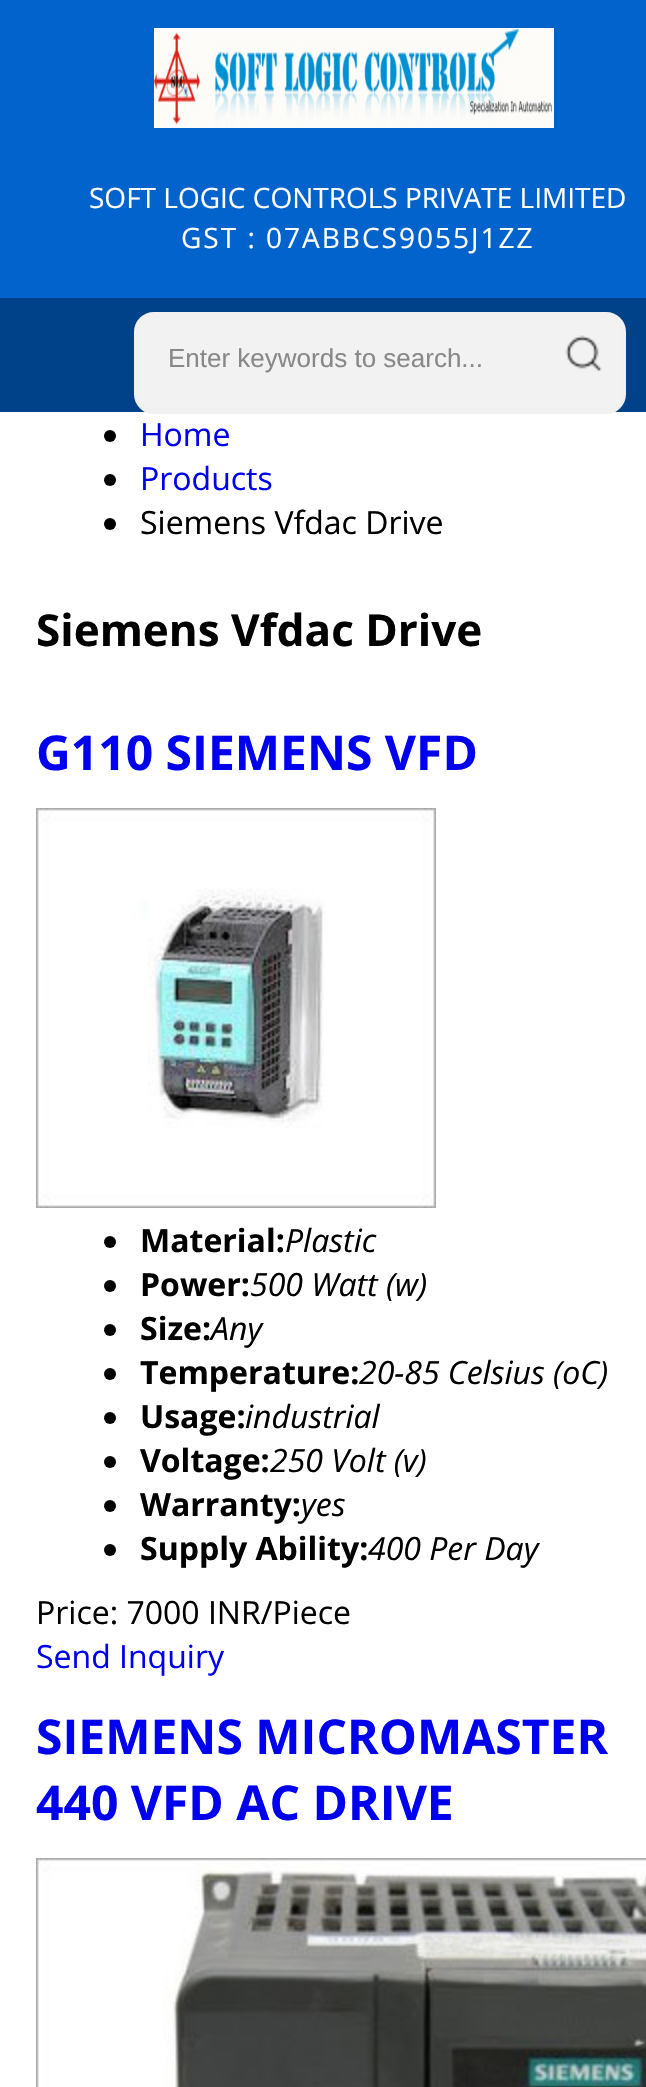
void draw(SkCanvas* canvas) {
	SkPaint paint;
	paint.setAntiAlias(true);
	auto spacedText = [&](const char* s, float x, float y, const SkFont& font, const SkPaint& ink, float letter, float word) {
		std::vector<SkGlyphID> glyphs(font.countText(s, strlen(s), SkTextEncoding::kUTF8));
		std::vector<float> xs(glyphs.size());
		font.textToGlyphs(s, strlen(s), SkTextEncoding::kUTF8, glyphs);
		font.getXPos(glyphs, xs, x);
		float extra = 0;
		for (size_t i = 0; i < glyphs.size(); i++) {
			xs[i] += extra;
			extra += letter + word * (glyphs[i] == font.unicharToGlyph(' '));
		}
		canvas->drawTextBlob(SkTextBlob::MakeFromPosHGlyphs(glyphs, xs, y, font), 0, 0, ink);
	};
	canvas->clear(0xffffffff);
	paint.setColor(0xff0263cc);
	canvas->drawRect(SkRect::MakeXYWH(0, 0, 646, 298), paint);
	canvas->drawImageRect(SkImages::DeferredFromEncodedData(SkData::MakeFromFileName("img1.png")), SkRect::MakeXYWH(154, 28, 400, 100), SkSamplingOptions());
	SkFont f1(fontMgr->matchFamilyStyle("Open Sans", SkFontStyle::Normal()), 28);
	f1.setSubpixel(true);
	paint.setColor(0xffffffff);
	canvas->drawString("SOFT LOGIC CONTROLS PRIVATE LIMITED", 89, 208, f1, paint);
	spacedText("GST : 07ABBCS9055J1ZZ", 181, 248, f1, paint, 2, 0);
	paint.setColor(0xff00428a);
	canvas->drawRect(SkRect::MakeXYWH(0, 298, 646, 114), paint);
	paint.setColor(0xfff2f2f2);
	canvas->drawRoundRect(SkRect::MakeXYWH(137, 315, 486, 96), 17, 17, paint);
	paint.setStroke(true);
	paint.setStrokeWidth(6);
	paint.setColor(0xfff1f1f1);
	canvas->drawRoundRect(SkRect::MakeXYWH(137, 315, 486, 96), 17, 17, paint);
	SkFont f2(fontMgr->matchFamilyStyle("Liberation Sans", SkFontStyle::Normal()), 26);
	f2.setSubpixel(true);
	paint.setStroke(false);
	paint.setColor(0xff888888);
	canvas->drawString("Enter keywords to search...", 168, 367, f2, paint);
	canvas->drawImageRect(SkImages::DeferredFromEncodedData(SkData::MakeFromFileName("img2.png")), SkRect::MakeXYWH(565, 335, 37, 37), SkSamplingOptions());
	paint.setColor(0xff000000);
	canvas->drawCircle(110, 436, 6, paint);
	SkFont f3(fontMgr->matchFamilyStyle("Open Sans", SkFontStyle::Normal()), 32);
	f3.setSubpixel(true);
	paint.setColor(0xff0000ee);
	canvas->drawString("Home", 140, 446, f3, paint);
	paint.setColor(0xff000000);
	canvas->drawCircle(110, 480, 6, paint);
	paint.setColor(0xff0000ee);
	canvas->drawString("Products", 140, 490, f3, paint);
	paint.setColor(0xff000000);
	canvas->drawCircle(110, 524, 6, paint);
	canvas->drawString("Siemens Vfdac Drive", 140, 534, f3, paint);
	SkFont f4(fontMgr->matchFamilyStyle("Open Sans", SkFontStyle::Bold()), 44);
	f4.setSubpixel(true);
	canvas->drawString("Siemens Vfdac Drive", 36, 646, f4, paint);
	SkFont f5(fontMgr->matchFamilyStyle("Open Sans", SkFontStyle::Bold()), 48);
	f5.setSubpixel(true);
	paint.setColor(0xff0000ee);
	canvas->drawString("G110 SIEMENS VFD", 36, 770, f5, paint);
	canvas->drawImageRect(SkImages::DeferredFromEncodedData(SkData::MakeFromFileName("img3.png")), SkRect::MakeXYWH(36, 808, 400, 400), SkSamplingOptions());
	paint.setColor(0xff000000);
	canvas->drawCircle(110, 1242, 6, paint);
	SkFont f6(fontMgr->matchFamilyStyle("Open Sans", SkFontStyle::Bold()), 32);
	f6.setSubpixel(true);
	canvas->drawString("Material:", 140, 1252, f6, paint);
	SkFont f7(fontMgr->matchFamilyStyle("Open Sans", SkFontStyle::Italic()), 32);
	f7.setSubpixel(true);
	canvas->drawString("Plastic", 285, 1252, f7, paint);
	canvas->drawCircle(110, 1286, 6, paint);
	canvas->drawString("Power:", 140, 1296, f6, paint);
	canvas->drawString("500 Watt (w)", 250, 1296, f7, paint);
	canvas->drawCircle(110, 1330, 6, paint);
	canvas->drawString("Size:", 140, 1340, f6, paint);
	canvas->drawString("Any", 211, 1340, f7, paint);
	canvas->drawCircle(110, 1374, 6, paint);
	canvas->drawString("Temperature:", 140, 1384, f6, paint);
	canvas->drawString("20-85 Celsius (oC)", 359, 1384, f7, paint);
	canvas->drawCircle(110, 1418, 6, paint);
	canvas->drawString("Usage:", 140, 1428, f6, paint);
	canvas->drawString("industrial", 245, 1428, f7, paint);
	canvas->drawCircle(110, 1462, 6, paint);
	canvas->drawString("Voltage:", 140, 1472, f6, paint);
	canvas->drawString("250 Volt (v)", 270, 1472, f7, paint);
	canvas->drawCircle(110, 1506, 6, paint);
	canvas->drawString("Warranty:", 140, 1516, f6, paint);
	canvas->drawString("yes", 301, 1516, f7, paint);
	canvas->drawCircle(110, 1550, 6, paint);
	canvas->drawString("Supply Ability:", 140, 1560, f6, paint);
	canvas->drawString("400 Per Day", 368, 1560, f7, paint);
	canvas->drawString("Price: 7000 INR/Piece", 36, 1624, f3, paint);
	paint.setColor(0xff0000ee);
	canvas->drawString("Send Inquiry", 36, 1668, f3, paint);
	canvas->drawString("SIEMENS MICROMASTER", 36, 1754, f5, paint);
	canvas->drawString("440 VFD AC DRIVE", 36, 1820, f5, paint);
	canvas->drawImageRect(SkImages::DeferredFromEncodedData(SkData::MakeFromFileName("img4.png")), SkRect::MakeXYWH(36, 1858, 610, 229), SkSamplingOptions());
}
